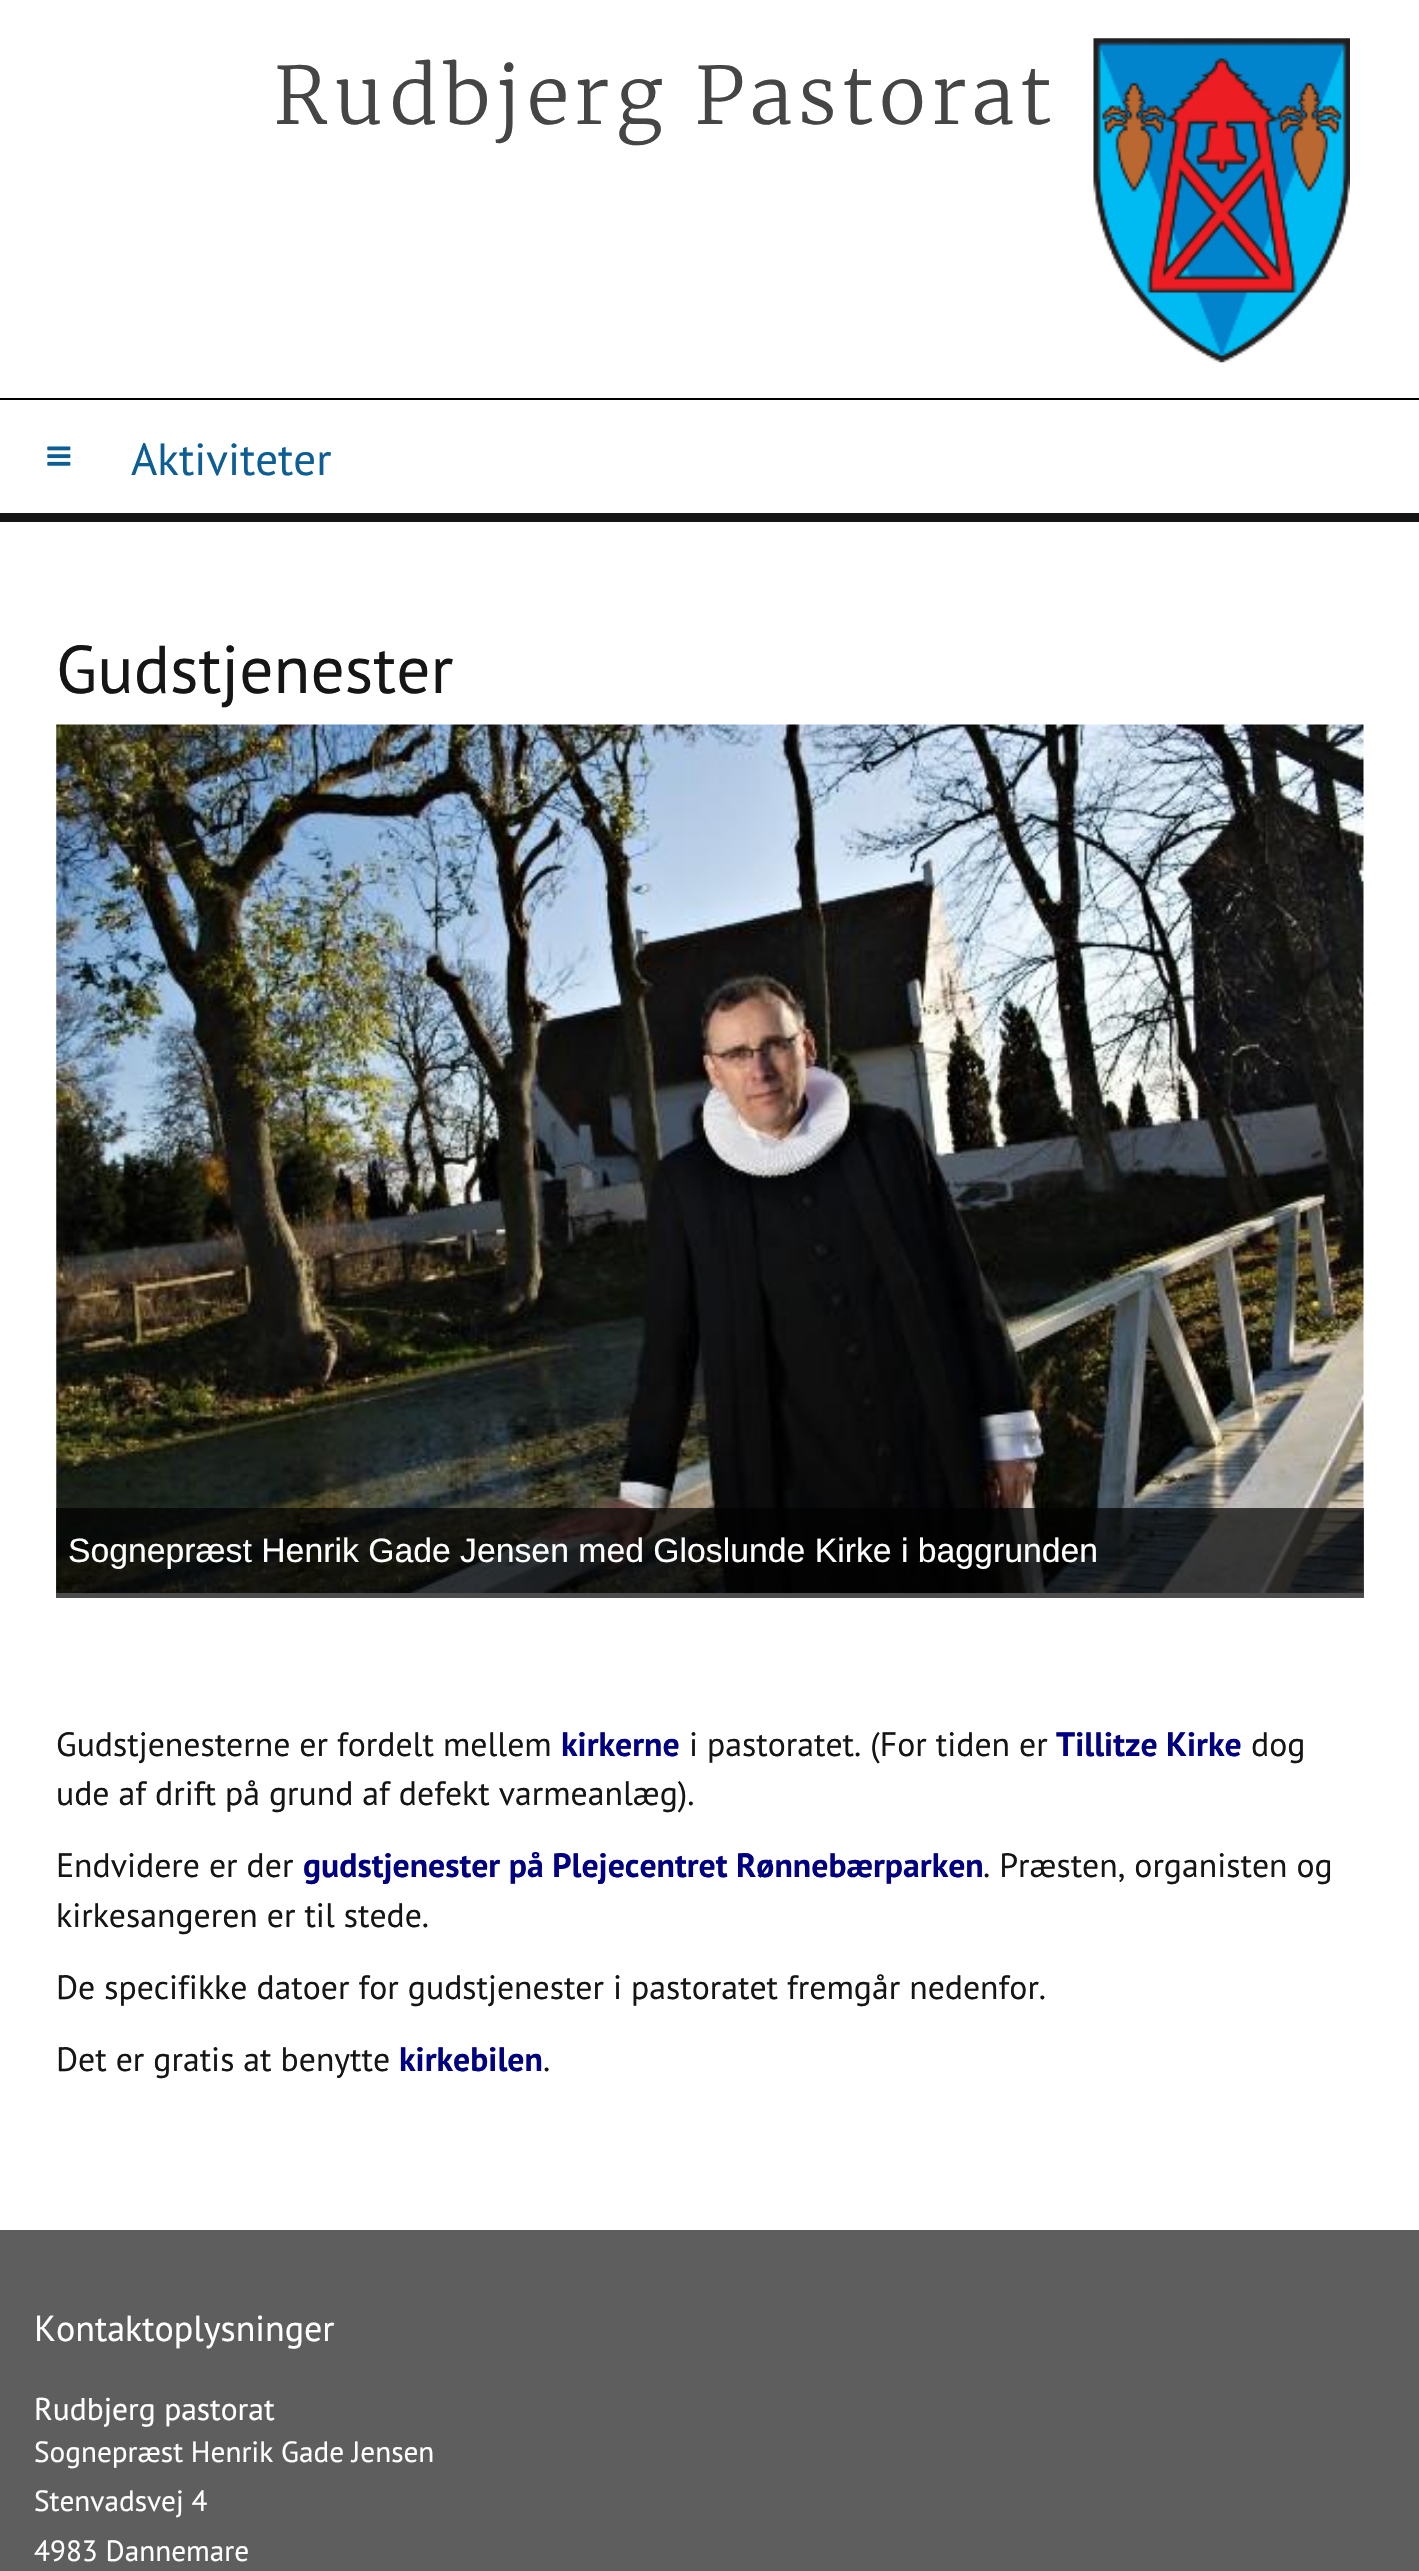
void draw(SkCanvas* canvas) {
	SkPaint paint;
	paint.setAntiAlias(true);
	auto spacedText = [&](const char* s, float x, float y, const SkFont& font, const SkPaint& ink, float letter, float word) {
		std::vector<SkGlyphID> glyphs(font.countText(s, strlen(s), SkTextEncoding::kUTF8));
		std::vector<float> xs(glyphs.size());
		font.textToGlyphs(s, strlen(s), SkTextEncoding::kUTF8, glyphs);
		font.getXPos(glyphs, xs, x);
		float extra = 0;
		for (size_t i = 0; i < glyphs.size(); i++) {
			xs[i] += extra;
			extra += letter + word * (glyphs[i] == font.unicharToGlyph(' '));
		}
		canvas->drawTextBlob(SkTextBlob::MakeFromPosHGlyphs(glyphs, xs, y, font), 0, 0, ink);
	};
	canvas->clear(0xff5e5e5e);
	paint.setColor(0xffffffff);
	canvas->drawRect(SkRect::MakeXYWH(0, 0, 1419, 513), paint);
	paint.setColor(0xff000000);
	canvas->drawRect(SkRect::MakeXYWH(0, 398, 1419, 2), paint);
	SkFont f1(fontMgr->matchFamilyStyle("Merriweather", SkFontStyle(300, SkFontStyle::kNormal_Width, SkFontStyle::kUpright_Slant)), 78.75);
	f1.setSubpixel(true);
	paint.setColor(0xff444544);
	spacedText("Rudbjerg Pastorat", 274, 124, f1, paint, 6.75, 0);
	canvas->drawImageRect(SkImages::DeferredFromEncodedData(SkData::MakeFromFileName("img1.png")), SkRect::MakeXYWH(1093, 38, 257, 325), SkSamplingOptions());
	paint.setColor(0xff151515);
	canvas->drawRect(SkRect::MakeXYWH(0, 513, 1419, 9), paint);
	canvas->drawImageRect(SkImages::DeferredFromEncodedData(SkData::MakeFromFileName("img2.png")), SkRect::MakeXYWH(47, 446, 24, 20), SkSamplingOptions());
	SkFont f2(fontMgr->matchFamilyStyle("PT Sans", SkFontStyle::Normal()), 45);
	f2.setSubpixel(true);
	paint.setColor(0xff0d5e94);
	canvas->drawString("Aktiviteter", 131, 475, f2, paint);
	paint.setColor(0xffffffff);
	canvas->drawRect(SkRect::MakeXYWH(0, 522, 1419, 1708), paint);
	SkFont f3(fontMgr->matchFamilyStyle("PT Sans", SkFontStyle::Normal()), 67.5);
	f3.setSubpixel(true);
	paint.setColor(0xff151515);
	canvas->drawString("Gudstjenester", 56, 693, f3, paint);
	canvas->drawImageRect(SkImages::DeferredFromEncodedData(SkData::MakeFromFileName("img3.png")), SkRect::MakeXYWH(56, 724, 1308, 869), SkSamplingOptions());
	paint.setColor(0xb3000000);
	canvas->drawRect(SkRect::MakeXYWH(56, 1508, 1308, 90), paint);
	SkFont f4(fontMgr->matchFamilyStyle("Liberation Sans", SkFontStyle::Normal()), 33.75);
	f4.setSubpixel(true);
	paint.setColor(0xffffffff);
	canvas->drawString("Sognepræst Henrik Gade Jensen med Gloslunde Kirke i baggrunden", 68, 1562, f4, paint);
	SkFont f5(fontMgr->matchFamilyStyle("PT Sans", SkFontStyle::Normal()), 33.75);
	f5.setSubpixel(true);
	paint.setColor(0xff151515);
	canvas->drawString("Gudstjenesterne er fordelt mellem", 56, 1756, f5, paint);
	SkFont f6(fontMgr->matchFamilyStyle("PT Sans", SkFontStyle::Bold()), 33.75);
	f6.setSubpixel(true);
	paint.setColor(0xff000080);
	canvas->drawString("kirkerne", 561, 1756, f6, paint);
	paint.setColor(0xff151515);
	canvas->drawString("i pastoratet. (For tiden er", 689, 1756, f5, paint);
	paint.setColor(0xff000080);
	canvas->drawString("Tillitze Kirke", 1056, 1756, f6, paint);
	paint.setColor(0xff151515);
	canvas->drawString("dog", 1251, 1756, f5, paint);
	canvas->drawString("ude af drift på grund af defekt varmeanlæg).", 56, 1805, f5, paint);
	canvas->drawString("Endvidere er der", 56, 1877, f5, paint);
	paint.setColor(0xff000080);
	canvas->drawString("gudstjenester på Plejecentret Rønnebærparken", 303, 1877, f6, paint);
	paint.setColor(0xff151515);
	canvas->drawString(". Præsten, organisten og", 983, 1877, f5, paint);
	canvas->drawString("kirkesangeren er til stede.", 56, 1927, f5, paint);
	canvas->drawString("De specifikke datoer for gudstjenester i pastoratet fremgår nedenfor.", 56, 1999, f5, paint);
	canvas->drawString("Det er gratis at benytte", 56, 2071, f5, paint);
	paint.setColor(0xff000080);
	canvas->drawString("kirkebilen", 399, 2071, f6, paint);
	paint.setColor(0xff151515);
	canvas->drawString(".", 543, 2071, f5, paint);
	SkFont f7(fontMgr->matchFamilyStyle("PT Sans", SkFontStyle::Normal()), 36);
	f7.setSubpixel(true);
	paint.setColor(0xffffffff);
	canvas->drawString("Kontaktoplysninger", 34, 2341, f7, paint);
	SkFont f8(fontMgr->matchFamilyStyle("PT Sans", SkFontStyle::Normal()), 31.5);
	f8.setSubpixel(true);
	canvas->drawString("Rudbjerg pastorat", 34, 2420, f8, paint);
	SkFont f9(fontMgr->matchFamilyStyle("PT Sans", SkFontStyle::Normal()), 29.25);
	f9.setSubpixel(true);
	canvas->drawString("Sognepræst Henrik Gade Jensen", 34, 2462, f9, paint);
	canvas->drawString("Stenvadsvej 4", 34, 2511, f9, paint);
	canvas->drawString("4983 Dannemare", 34, 2561, f9, paint);
}
